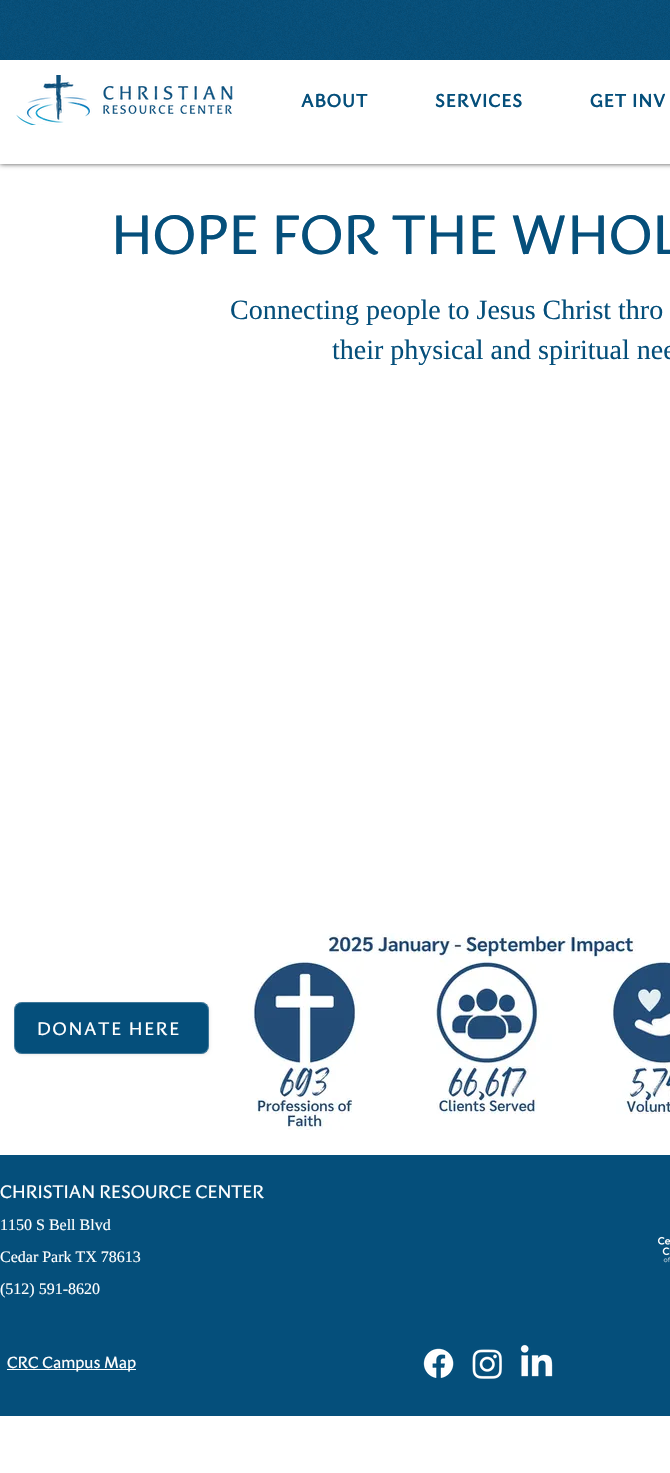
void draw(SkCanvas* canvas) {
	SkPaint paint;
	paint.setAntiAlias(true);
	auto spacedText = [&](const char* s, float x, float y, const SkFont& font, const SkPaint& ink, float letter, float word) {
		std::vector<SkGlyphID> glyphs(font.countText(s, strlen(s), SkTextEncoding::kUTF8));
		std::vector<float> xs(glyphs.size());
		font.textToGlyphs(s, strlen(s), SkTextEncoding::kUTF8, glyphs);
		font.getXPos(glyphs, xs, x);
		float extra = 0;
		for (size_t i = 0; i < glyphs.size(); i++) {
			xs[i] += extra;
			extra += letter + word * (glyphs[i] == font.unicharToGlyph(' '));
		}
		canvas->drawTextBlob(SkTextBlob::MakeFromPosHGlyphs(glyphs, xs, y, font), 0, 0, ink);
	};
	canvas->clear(0xffffffff);
	paint.setColor(0xb3000000);
	paint.setMaskFilter(SkMaskFilter::MakeBlur(kNormal_SkBlurStyle, 2.5));
	canvas->drawRect(SkRect::MakeXYWH(0, 0, 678, 164), paint);
	paint.setMaskFilter(nullptr);
	paint.setColor(0xff054f7b);
	canvas->drawRect(SkRect::MakeXYWH(0, 0, 670, 60), paint);
	canvas->drawImageRect(SkImages::DeferredFromEncodedData(SkData::MakeFromFileName("img1.png")), SkRect::MakeXYWH(0, 0, 670, 60), SkSamplingOptions());
	paint.setColor(0xffffffff);
	canvas->drawRect(SkRect::MakeXYWH(0, 60, 670, 104), paint);
	canvas->drawImageRect(SkImages::DeferredFromEncodedData(SkData::MakeFromFileName("img2.png")), SkRect::MakeXYWH(16, 75, 217, 50), SkSamplingOptions());
	SkFont f1(fontMgr->matchFamilyStyle("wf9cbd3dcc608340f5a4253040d", SkFontStyle::Bold()), 18);
	f1.setSubpixel(true);
	paint.setColor(0xff054f7b);
	spacedText("ABOUT", 301, 107, f1, paint, 1, 0);
	spacedText("SERVICES", 435, 107, f1, paint, 1, 0);
	spacedText("GET INV", 590, 107, f1, paint, 1, 0);
	SkFont f2(fontMgr->matchFamilyStyle("wf9cbd3dcc608340f5a4253040d", SkFontStyle::Normal()), 55);
	f2.setSubpixel(true);
	canvas->drawString("HOPE FOR THE WHOL", 111, 254, f2, paint);
	SkFont f3(fontMgr->matchFamilyStyle("Liberation Serif", SkFontStyle::Normal()), 28);
	f3.setSubpixel(true);
	canvas->drawString("Connecting people to Jesus Christ thro", 230, 319, f3, paint);
	canvas->drawString("their physical and spiritual nee", 332, 359, f3, paint);
	paint.setColor(0xffededed);
	paint.setMaskFilter(SkMaskFilter::MakeBlur(kNormal_SkBlurStyle, 1.5));
	canvas->drawRoundRect(SkRect::MakeXYWH(15, 1003, 195, 52), 8, 8, paint);
	paint.setMaskFilter(nullptr);
	paint.setColor(0xff054f7b);
	canvas->drawRoundRect(SkRect::MakeXYWH(14, 1002, 195, 52), 8, 8, paint);
	paint.setStroke(true);
	paint.setStrokeWidth(1);
	paint.setColor(0x3bffffff);
	canvas->drawRoundRect(SkRect::MakeXYWH(14.5, 1002.5, 194, 51), 7.5, 7.5, paint);
	SkFont f4(fontMgr->matchFamilyStyle("wf9cbd3dcc608340f5a4253040d", SkFontStyle::Normal()), 18);
	f4.setSubpixel(true);
	paint.setStroke(false);
	paint.setColor(0xffffffff);
	spacedText("DONATE HERE", 37, 1035, f4, paint, 1.75, 0);
	canvas->drawImageRect(SkImages::DeferredFromEncodedData(SkData::MakeFromFileName("img3.png")), SkRect::MakeXYWH(248, 933, 422, 197), SkSamplingOptions());
	paint.setColor(0xff054f7b);
	canvas->drawRect(SkRect::MakeXYWH(0, 1155, 670, 261), paint);
	paint.setColor(0xffffffff);
	canvas->drawString("CHRISTIAN RESOURCE CENTER", 0, 1198, f4, paint);
	SkFont f5(fontMgr->matchFamilyStyle("Liberation Serif", SkFontStyle::Normal()), 16);
	f5.setSubpixel(true);
	canvas->drawString("1150 S Bell Blvd", 0, 1230, f5, paint);
	canvas->drawString("Cedar Park TX 78613", 0, 1262, f5, paint);
	canvas->drawString("(512) 591-8620", 0, 1294, f5, paint);
	canvas->drawImageRect(SkImages::DeferredFromEncodedData(SkData::MakeFromFileName("img4.png")), SkRect::MakeXYWH(657, 1236, 13, 27), SkSamplingOptions());
	canvas->drawRect(SkRect::MakeXYWH(7, 1369, 129, 1), paint);
	SkFont f6(fontMgr->matchFamilyStyle("wf9cbd3dcc608340f5a4253040d", SkFontStyle::Normal()), 16);
	f6.setSubpixel(true);
	canvas->drawString("CRC Campus Map", 7, 1368, f6, paint);
	canvas->drawImageRect(SkImages::DeferredFromEncodedData(SkData::MakeFromFileName("img5.png")), SkRect::MakeXYWH(423, 1348, 31, 30), SkSamplingOptions());
	canvas->drawImageRect(SkImages::DeferredFromEncodedData(SkData::MakeFromFileName("img6.png")), SkRect::MakeXYWH(472, 1349, 30, 30), SkSamplingOptions());
	canvas->drawImageRect(SkImages::DeferredFromEncodedData(SkData::MakeFromFileName("img7.png")), SkRect::MakeXYWH(520, 1344, 33, 33), SkSamplingOptions());
}
